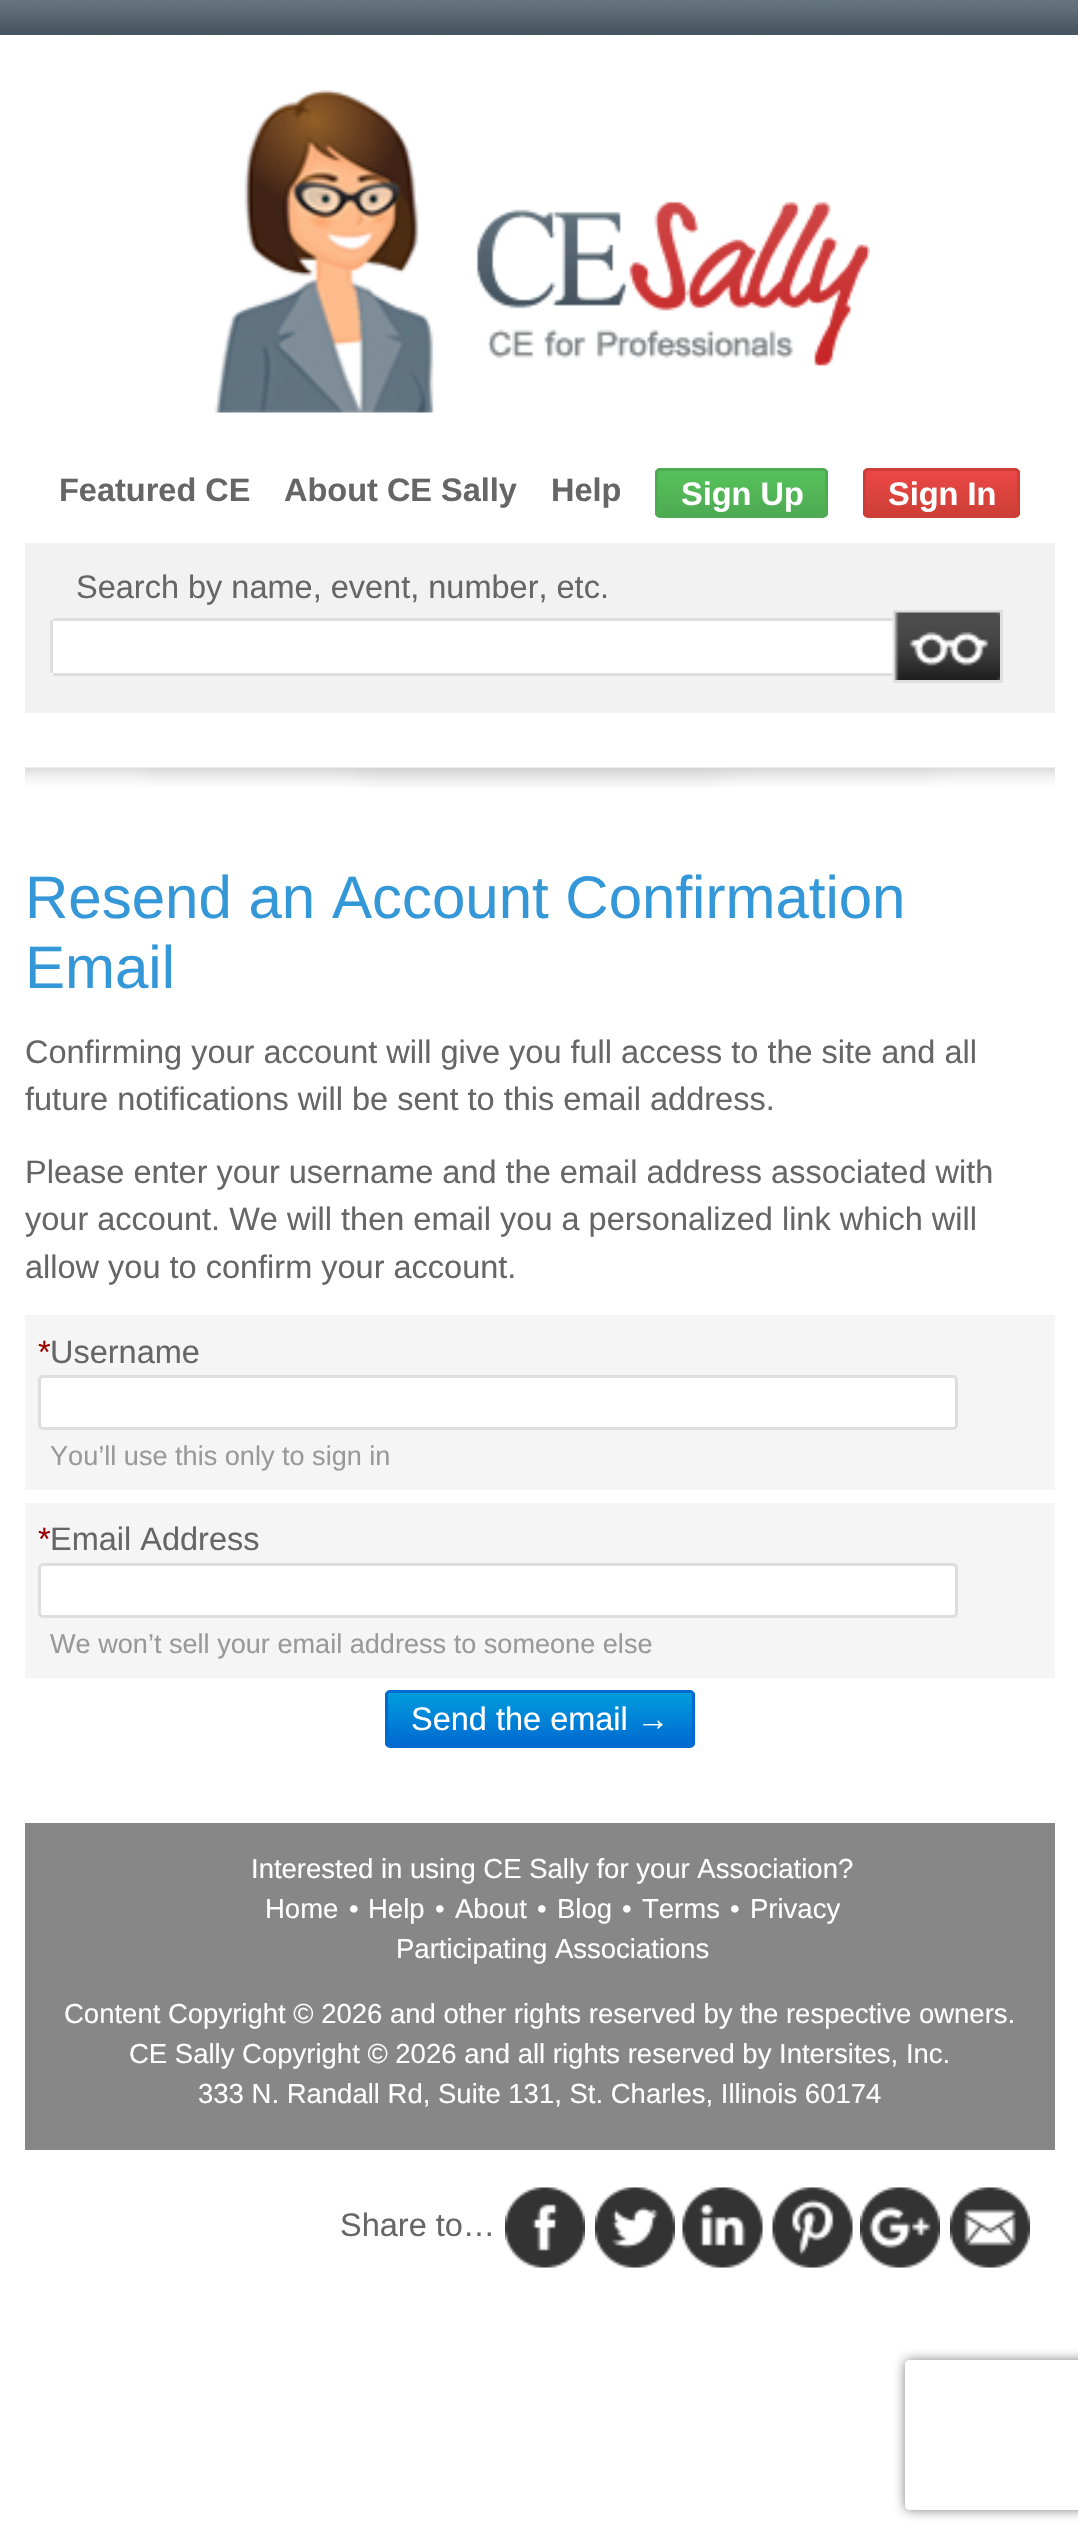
void draw(SkCanvas* canvas) {
	SkPaint paint;
	paint.setAntiAlias(true);
	auto svgPath = [&](const char* data, bool evenOdd = false) {
		SkPath result = *SkParsePath::FromSVGString(data);
		if (evenOdd) result.setFillType(SkPathFillType::kEvenOdd);
		return result;
	};
	canvas->clear(0xffffffff);
	canvas->drawImageRect(SkImages::DeferredFromEncodedData(SkData::MakeFromFileName("img1.png")), SkRect::MakeXYWH(0, 0, 1078, 35), SkSamplingOptions());
	canvas->drawImageRect(SkImages::DeferredFromEncodedData(SkData::MakeFromFileName("img2.png")), SkRect::MakeXYWH(214, 90, 656, 323), SkSamplingOptions());
	SkFont f1(fontMgr->matchFamilyStyle("Liberation Sans", SkFontStyle::Bold()), 32.5);
	f1.setSubpixel(true);
	paint.setColor(0xff666666);
	canvas->drawString("Featured CE", 59, 501, f1, paint);
	canvas->drawString("About CE Sally", 284, 501, f1, paint);
	canvas->drawString("Help", 551, 501, f1, paint);
	canvas->save();
	canvas->clipPath(svgPath("M660 468H823C826 468 828 470 828 473V513C828 516 826 518 823 518H660C657 518 655 516 655 513V473C655 470 657 468 660 468Z"), true);
	{
		const SkColor colors[] = {0xff56c25b, 0xff4eab53};
		const float stops[] = {0, 1};
		const SkPoint ends[] = {{658, 470}, {658, 515}};
		paint.setShader(SkGradientShader::MakeLinear(ends, colors, stops, 2, SkTileMode::kClamp));
		paint.setAlpha(255);
	}
	canvas->drawRect(SkRect::MakeXYWH(655, 470, 173, 45), paint);
	canvas->restore();
	paint.setStroke(true);
	paint.setStrokeWidth(3);
	paint.setShader(nullptr);
	paint.setColor(0xff4eab53);
	canvas->drawRoundRect(SkRect::MakeXYWH(656.5, 469.5, 170, 47), 3.5, 3.5, paint);
	paint.setStroke(false);
	paint.setColor(0xffffffff);
	canvas->drawString("Sign Up", 681, 505, f1, paint);
	canvas->save();
	canvas->clipPath(svgPath("M868 468H1015C1018 468 1020 470 1020 473V513C1020 516 1018 518 1015 518H868C865 518 863 516 863 513V473C863 470 865 468 868 468Z"), true);
	{
		const SkColor colors[] = {0xffec4848, 0xffcd3e36};
		const float stops[] = {0, 1};
		const SkPoint ends[] = {{865, 470}, {865, 515}};
		paint.setShader(SkGradientShader::MakeLinear(ends, colors, stops, 2, SkTileMode::kClamp));
		paint.setAlpha(255);
	}
	canvas->drawRect(SkRect::MakeXYWH(863, 470, 157, 45), paint);
	canvas->restore();
	paint.setStroke(true);
	paint.setShader(nullptr);
	paint.setColor(0xffcd3e36);
	canvas->drawRoundRect(SkRect::MakeXYWH(864.5, 469.5, 154, 47), 3.5, 3.5, paint);
	paint.setStroke(false);
	paint.setColor(0xffffffff);
	canvas->drawString("Sign In", 888, 505, f1, paint);
	paint.setColor(0xfff2f2f2);
	canvas->drawRect(SkRect::MakeXYWH(25, 543, 1030, 170), paint);
	SkFont f2(fontMgr->matchFamilyStyle("Liberation Sans", SkFontStyle::Normal()), 32.5);
	f2.setSubpixel(true);
	paint.setColor(0xff666666);
	canvas->drawString("Search by name, event, number, etc.", 76, 598, f2, paint);
	paint.setColor(0xffffffff);
	canvas->drawPath(svgPath("M55 618H895V675H55C52 675 50 673 50 670V623C50 620 52 618 55 618Z"), paint);
	paint.setColor(0xffdedede);
	canvas->drawRect(SkRect::MakeXYWH(53, 618, 842, 3), paint);
	canvas->drawRect(SkRect::MakeXYWH(53, 673, 842, 3), paint);
	canvas->drawRect(SkRect::MakeXYWH(50, 620, 3, 53), paint);
	canvas->drawRect(SkRect::MakeXYWH(893, 610, 110, 3), paint);
	canvas->drawRect(SkRect::MakeXYWH(1000, 610, 3, 73), paint);
	canvas->drawRect(SkRect::MakeXYWH(893, 680, 110, 3), paint);
	canvas->drawImageRect(SkImages::DeferredFromEncodedData(SkData::MakeFromFileName("img3.png")), SkRect::MakeXYWH(892, 612, 108, 68), SkSamplingOptions());
	canvas->drawImageRect(SkImages::DeferredFromEncodedData(SkData::MakeFromFileName("img4.png")), SkRect::MakeXYWH(25, 767, 1030, 21), SkSamplingOptions());
	SkFont f3(fontMgr->matchFamilyStyle("Liberation Sans", SkFontStyle::Normal()), 60);
	f3.setSubpixel(true);
	paint.setColor(0xff3497d7);
	canvas->drawString("Resend an Account Confirmation", 25, 918, f3, paint);
	canvas->drawString("Email", 25, 988, f3, paint);
	paint.setColor(0xff666666);
	canvas->drawString("Confirming your account will give you full access to the site and all", 25, 1063, f2, paint);
	canvas->drawString("future notifications will be sent to this email address.", 25, 1110, f2, paint);
	canvas->drawString("Please enter your username and the email address associated with", 25, 1183, f2, paint);
	canvas->drawString("your account. We will then email you a personalized link which will", 25, 1230, f2, paint);
	canvas->drawString("allow you to confirm your account.", 25, 1278, f2, paint);
	paint.setColor(0xfff5f5f5);
	canvas->drawRect(SkRect::MakeXYWH(25, 1315, 1030, 175), paint);
	paint.setColor(0xff990000);
	canvas->drawString("*", 38, 1363, f2, paint);
	paint.setColor(0xff666666);
	canvas->drawString("Username", 50, 1363, f2, paint);
	paint.setColor(0xffffffff);
	canvas->drawRoundRect(SkRect::MakeXYWH(39.5, 1376.5, 917, 52), 3.5, 3.5, paint);
	paint.setStroke(true);
	paint.setColor(0xffdedede);
	canvas->drawRoundRect(SkRect::MakeXYWH(39.5, 1376.5, 917, 52), 3.5, 3.5, paint);
	SkFont f4(fontMgr->matchFamilyStyle("Liberation Sans", SkFontStyle::Normal()), 27.1);
	f4.setSubpixel(true);
	paint.setStroke(false);
	paint.setColor(0xff999999);
	canvas->drawString("You’ll use this only to sign in", 50, 1465, f4, paint);
	paint.setColor(0xfff5f5f5);
	canvas->drawRect(SkRect::MakeXYWH(25, 1503, 1030, 175), paint);
	paint.setColor(0xff990000);
	canvas->drawString("*", 38, 1550, f2, paint);
	paint.setColor(0xff666666);
	canvas->drawString("Email Address", 50, 1550, f2, paint);
	paint.setColor(0xffffffff);
	canvas->drawRoundRect(SkRect::MakeXYWH(39.5, 1564.5, 917, 52), 3.5, 3.5, paint);
	paint.setStroke(true);
	paint.setColor(0xffdedede);
	canvas->drawRoundRect(SkRect::MakeXYWH(39.5, 1564.5, 917, 52), 3.5, 3.5, paint);
	paint.setStroke(false);
	paint.setColor(0xff999999);
	canvas->drawString("We won’t sell your email address to someone else", 50, 1653, f4, paint);
	canvas->save();
	canvas->clipPath(svgPath("M390 1690H690C693 1690 695 1692 695 1695V1743C695 1746 693 1748 690 1748H390C387 1748 385 1746 385 1743V1695C385 1692 387 1690 390 1690Z"), true);
	{
		const SkColor colors[] = {0xff009cdc, 0xff006ad1};
		const float stops[] = {0, 1};
		const SkPoint ends[] = {{388, 1693}, {388, 1745}};
		paint.setShader(SkGradientShader::MakeLinear(ends, colors, stops, 2, SkTileMode::kClamp));
		paint.setAlpha(255);
	}
	canvas->drawRect(SkRect::MakeXYWH(385, 1693, 310, 52), paint);
	canvas->restore();
	paint.setStroke(true);
	paint.setShader(nullptr);
	paint.setColor(0xff006ad1);
	canvas->drawRoundRect(SkRect::MakeXYWH(386.5, 1691.5, 307, 55), 3.5, 3.5, paint);
	paint.setStroke(false);
	paint.setColor(0xffffffff);
	canvas->drawString("Send the email →", 411, 1730, f2, paint);
	paint.setColor(0xff878787);
	canvas->drawRect(SkRect::MakeXYWH(25, 1823, 1030, 327), paint);
	SkFont f5(fontMgr->matchFamilyStyle("Liberation Sans", SkFontStyle::Normal()), 27.5);
	f5.setSubpixel(true);
	paint.setColor(0xffffffff);
	canvas->drawString("Interested in using CE Sally for your Association?", 251, 1878, f5, paint);
	canvas->drawString("Home", 265, 1918, f5, paint);
	canvas->drawString("•", 349, 1918, f5, paint);
	canvas->drawString("Help", 368, 1918, f5, paint);
	canvas->drawString("•", 435, 1918, f5, paint);
	canvas->drawString("About", 455, 1918, f5, paint);
	canvas->drawString("•", 537, 1918, f5, paint);
	canvas->drawString("Blog", 557, 1918, f5, paint);
	canvas->drawString("•", 622, 1918, f5, paint);
	canvas->drawString("Terms", 642, 1918, f5, paint);
	canvas->drawString("•", 730, 1918, f5, paint);
	canvas->drawString("Privacy", 750, 1918, f5, paint);
	canvas->drawString("Participating Associations", 396, 1958, f5, paint);
	canvas->drawString("Content Copyright © 2026 and other rights reserved by the respective owners.", 64, 2023, f5, paint);
	canvas->drawString("CE Sally Copyright © 2026 and all rights reserved by Intersites, Inc.", 129, 2063, f5, paint);
	canvas->drawString("333 N. Randall Rd, Suite 131, St. Charles, Illinois 60174", 198, 2103, f5, paint);
	paint.setColor(0xff666666);
	canvas->drawString("Share to…", 340, 2236, f2, paint);
	canvas->drawImageRect(SkImages::DeferredFromEncodedData(SkData::MakeFromFileName("img5.png")), SkRect::MakeXYWH(505, 2187, 80, 81), SkSamplingOptions());
	canvas->drawImageRect(SkImages::DeferredFromEncodedData(SkData::MakeFromFileName("img6.png")), SkRect::MakeXYWH(595, 2187, 80, 81), SkSamplingOptions());
	canvas->drawImageRect(SkImages::DeferredFromEncodedData(SkData::MakeFromFileName("img7.png")), SkRect::MakeXYWH(682, 2187, 81, 81), SkSamplingOptions());
	canvas->drawImageRect(SkImages::DeferredFromEncodedData(SkData::MakeFromFileName("img8.png")), SkRect::MakeXYWH(772, 2187, 81, 81), SkSamplingOptions());
	canvas->drawImageRect(SkImages::DeferredFromEncodedData(SkData::MakeFromFileName("img9.png")), SkRect::MakeXYWH(860, 2187, 80, 81), SkSamplingOptions());
	canvas->drawImageRect(SkImages::DeferredFromEncodedData(SkData::MakeFromFileName("img10.png")), SkRect::MakeXYWH(950, 2187, 80, 81), SkSamplingOptions());
	canvas->save();
	canvas->clipPath(svgPath("M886 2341H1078V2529H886ZM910 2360H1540C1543 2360 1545 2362 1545 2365V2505C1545 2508 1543 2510 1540 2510H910C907 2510 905 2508 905 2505V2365C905 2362 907 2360 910 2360Z", true), true);
	paint.setColor(0xff808080);
	paint.setMaskFilter(SkMaskFilter::MakeBlur(kNormal_SkBlurStyle, 6));
	canvas->drawRoundRect(SkRect::MakeXYWH(905, 2360, 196, 150), 5, 5, paint);
	paint.setMaskFilter(nullptr);
	canvas->restore();
}
